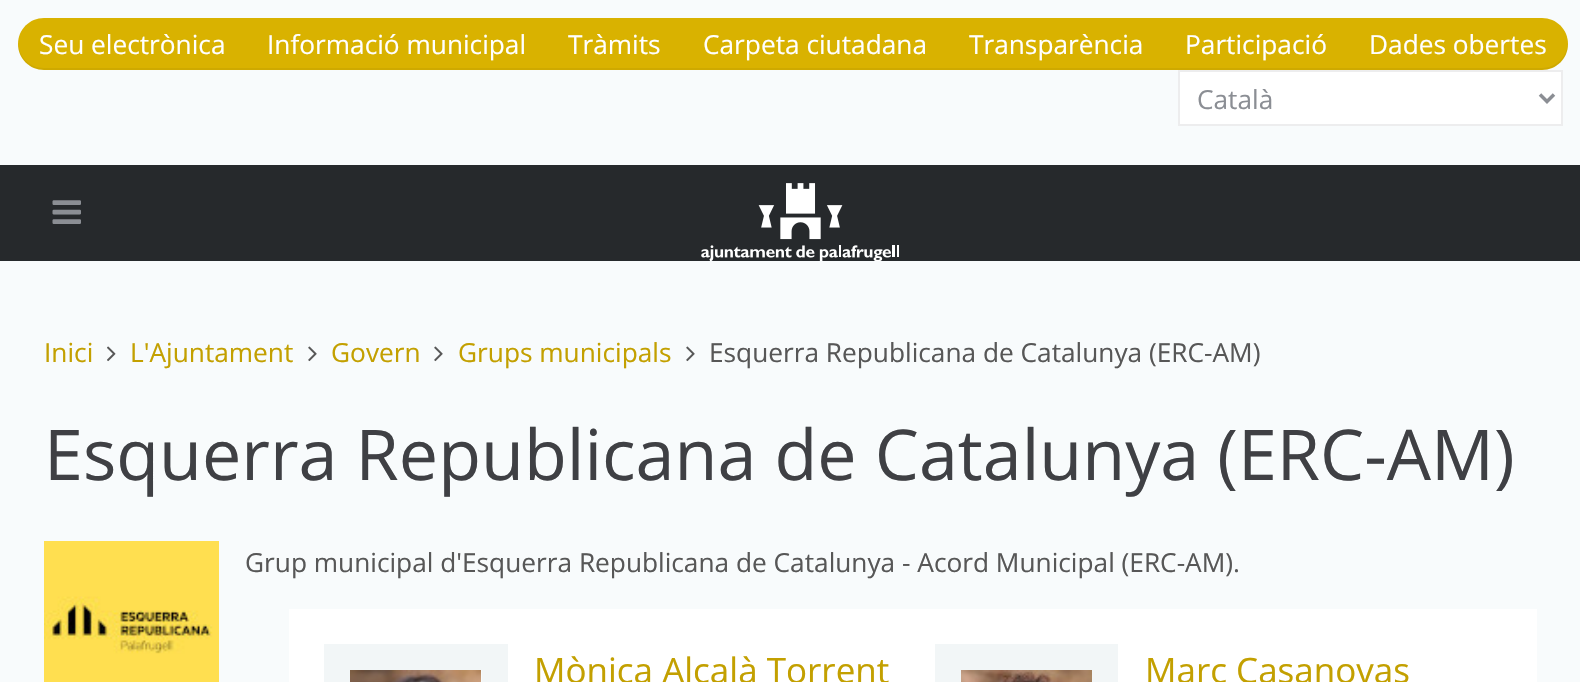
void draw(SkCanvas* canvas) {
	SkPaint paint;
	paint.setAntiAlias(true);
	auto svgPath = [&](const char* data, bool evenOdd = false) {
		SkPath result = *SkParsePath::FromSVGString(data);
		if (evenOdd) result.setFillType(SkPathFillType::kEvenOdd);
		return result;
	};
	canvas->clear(0xfff8fbfc);
	paint.setColor(0xffd9b200);
	canvas->drawPath(svgPath("M44 18H247V70H44C29.5 70 18 58.5 18 44C18 29.5 29.5 18 44 18Z"), paint);
	paint.setColor(0x0d000000);
	canvas->drawPath(svgPath("M18 43V44C18 58 30 70 44 70H247V68H44C29 68 19 57 18 43Z"), paint);
	SkFont f1(fontMgr->matchFamilyStyle("Open Sans", SkFontStyle::Normal()), 26.25);
	f1.setSubpixel(true);
	paint.setColor(0xffffffff);
	canvas->drawString("Seu electrònica", 39, 54, f1, paint);
	paint.setColor(0xffd9b200);
	canvas->drawRect(SkRect::MakeXYWH(247, 18, 1101, 50), paint);
	paint.setColor(0xffcea900);
	canvas->drawRect(SkRect::MakeXYWH(247, 68, 1101, 2), paint);
	paint.setColor(0xffffffff);
	canvas->drawString("Informació municipal", 267, 54, f1, paint);
	canvas->drawString("Tràmits", 568, 54, f1, paint);
	canvas->drawString("Carpeta ciutadana", 703, 54, f1, paint);
	canvas->drawString("Transparència", 969, 54, f1, paint);
	canvas->drawString("Participació", 1185, 54, f1, paint);
	paint.setColor(0xffd9b200);
	canvas->drawPath(svgPath("M1348 18H1542C1556.5 18 1568 29.5 1568 44C1568 58.5 1556.5 70 1542 70H1348Z"), paint);
	paint.setColor(0x0d000000);
	canvas->drawPath(svgPath("M1348 68V70H1542C1556 70 1568 58 1568 44V43C1567 57 1556 68 1542 68Z"), paint);
	paint.setColor(0xffffffff);
	canvas->drawString("Dades obertes", 1369, 54, f1, paint);
	canvas->drawRect(SkRect::MakeXYWH(1179, 71, 383, 54), paint);
	paint.setStroke(true);
	paint.setStrokeWidth(2);
	paint.setColor(0xffededee);
	canvas->drawRect(SkRect::MakeXYWH(1179, 71, 383, 54), paint);
	paint.setStrokeWidth(3.5);
	paint.setColor(0xff8b8e94);
	canvas->drawPath(svgPath("M1540 94.5L1547 101.5L1554 94.5"), paint);
	paint.setStroke(false);
	canvas->drawString("Català", 1197, 109, f1, paint);
	paint.setColor(0xff26292c);
	canvas->drawRect(SkRect::MakeXYWH(0, 165, 1580, 96), paint);
	canvas->drawImageRect(SkImages::DeferredFromEncodedData(SkData::MakeFromFileName("img1.png")), SkRect::MakeXYWH(52, 200, 29, 24), SkSamplingOptions());
	canvas->drawImageRect(SkImages::DeferredFromEncodedData(SkData::MakeFromFileName("img2.png")), SkRect::MakeXYWH(701, 183, 198, 78), SkSamplingOptions());
	paint.setColor(0xffc3a000);
	canvas->drawString("Inici", 44, 362, f1, paint);
	canvas->drawImageRect(SkImages::DeferredFromEncodedData(SkData::MakeFromFileName("img3.png")), SkRect::MakeXYWH(107, 346, 9, 16), SkSamplingOptions());
	canvas->drawString("L'Ajuntament", 130, 362, f1, paint);
	canvas->drawImageRect(SkImages::DeferredFromEncodedData(SkData::MakeFromFileName("img4.png")), SkRect::MakeXYWH(308, 346, 9, 16), SkSamplingOptions());
	canvas->drawString("Govern", 331, 362, f1, paint);
	canvas->drawImageRect(SkImages::DeferredFromEncodedData(SkData::MakeFromFileName("img4.png")), SkRect::MakeXYWH(434, 346, 9, 16), SkSamplingOptions());
	canvas->drawString("Grups municipals", 458, 362, f1, paint);
	canvas->drawImageRect(SkImages::DeferredFromEncodedData(SkData::MakeFromFileName("img4.png")), SkRect::MakeXYWH(686, 346, 9, 16), SkSamplingOptions());
	paint.setColor(0xff575757);
	canvas->drawString("Esquerra Republicana de Catalunya (ERC-AM)", 709, 362, f1, paint);
	SkFont f2(fontMgr->matchFamilyStyle("Open Sans", SkFontStyle::Normal()), 70);
	f2.setSubpixel(true);
	paint.setColor(0xff3f4044);
	canvas->drawString("Esquerra Republicana de Catalunya (ERC-AM)", 44, 480, f2, paint);
	canvas->drawImageRect(SkImages::DeferredFromEncodedData(SkData::MakeFromFileName("img5.png")), SkRect::MakeXYWH(44, 541, 175, 141), SkSamplingOptions());
	paint.setColor(0xff575757);
	canvas->drawString("Grup municipal d'Esquerra Republicana de Catalunya - Acord Municipal (ERC-AM).", 245, 572, f1, paint);
	paint.setColor(0xffffffff);
	canvas->drawRect(SkRect::MakeXYWH(289, 609, 1248, 73), paint);
	paint.setColor(0xfff8fbfc);
	canvas->drawRect(SkRect::MakeXYWH(481, 670, 1, 12), paint);
	paint.setStroke(true);
	paint.setStrokeWidth(26);
	paint.setColor(0xfff2f6f7);
	canvas->drawRect(SkRect::MakeXYWH(337, 657, 158, 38), paint);
	canvas->drawImageRect(SkImages::DeferredFromEncodedData(SkData::MakeFromFileName("img6.png")), SkRect::MakeXYWH(350, 670, 131, 12), SkSamplingOptions());
	SkFont f3(fontMgr->matchFamilyStyle("Open Sans", SkFontStyle::Normal()), 35);
	f3.setSubpixel(true);
	paint.setStroke(false);
	paint.setColor(0xffc3a000);
	canvas->drawString("Mònica Alcalà Torrent", 534, 683, f3, paint);
	paint.setStroke(true);
	paint.setColor(0xfff2f6f7);
	canvas->drawRect(SkRect::MakeXYWH(948, 657, 157, 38), paint);
	canvas->drawImageRect(SkImages::DeferredFromEncodedData(SkData::MakeFromFileName("img7.png")), SkRect::MakeXYWH(961, 670, 131, 12), SkSamplingOptions());
	paint.setStroke(false);
	paint.setColor(0xffc3a000);
	canvas->drawString("Marc Casanovas", 1145, 683, f3, paint);
}
